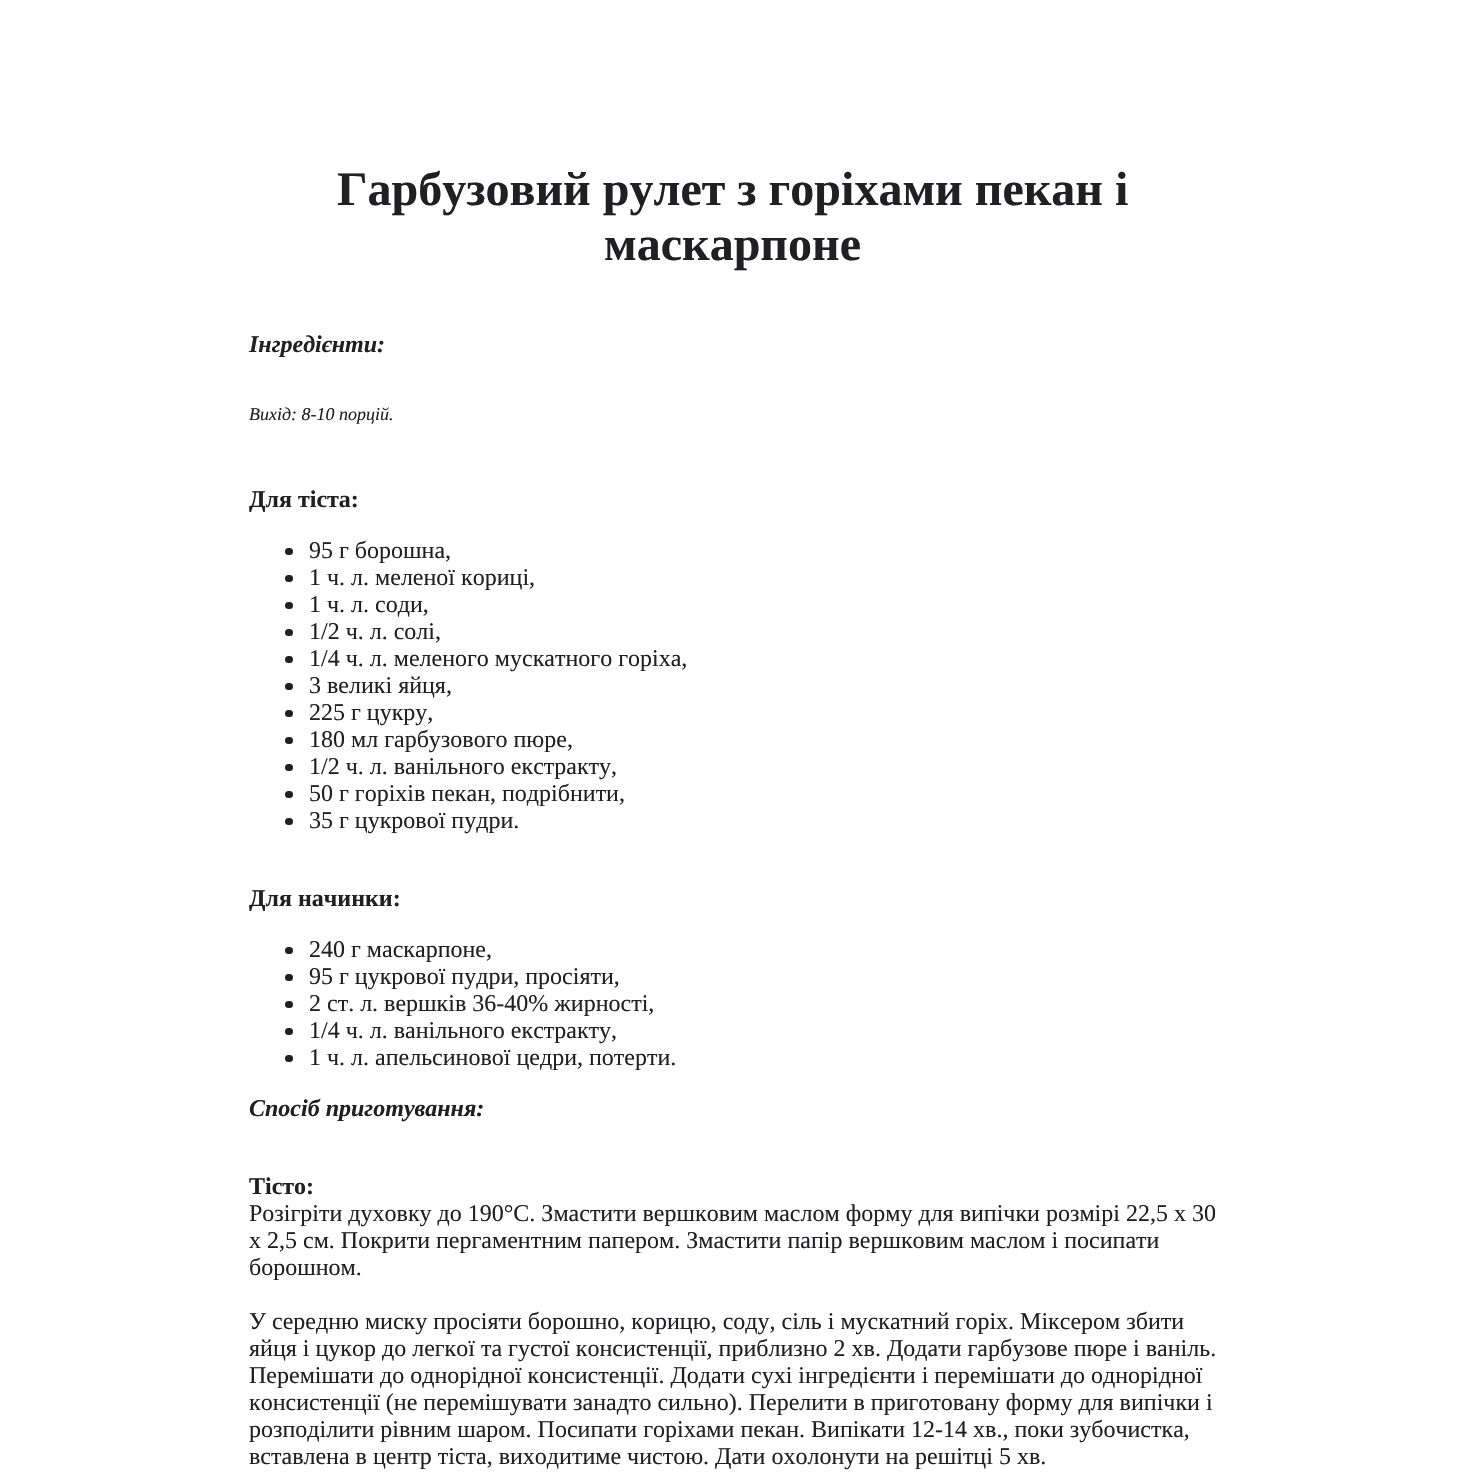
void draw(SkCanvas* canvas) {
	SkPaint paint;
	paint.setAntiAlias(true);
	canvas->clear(0xffffffff);
	SkFont f1(fontMgr->matchFamilyStyle("Liberation Serif", SkFontStyle::Bold()), 48);
	f1.setSubpixel(true);
	paint.setColor(0xff202024);
	canvas->drawString("Гарбузовий рулет з горіхами пекан і", 337, 205, f1, paint);
	canvas->drawString("маскарпоне", 604, 260, f1, paint);
	SkFont f2(fontMgr->matchFamilyStyle("Liberation Serif", SkFontStyle::BoldItalic()), 24);
	f2.setSubpixel(true);
	canvas->drawString("Інгредієнти:", 249, 352, f2, paint);
	SkFont f3(fontMgr->matchFamilyStyle("Liberation Serif", SkFontStyle::Italic()), 18);
	f3.setSubpixel(true);
	canvas->drawString("Вихід: 8-10 порцій.", 249, 420, f3, paint);
	SkFont f4(fontMgr->matchFamilyStyle("Liberation Serif", SkFontStyle::Bold()), 24);
	f4.setSubpixel(true);
	canvas->drawString("Для тіста:", 249, 507, f4, paint);
	canvas->drawRoundRect(SkRect::MakeXYWH(285, 548, 8, 7), 3.5, 3.5, paint);
	SkFont f5(fontMgr->matchFamilyStyle("Liberation Serif", SkFontStyle::Normal()), 24);
	f5.setSubpixel(true);
	canvas->drawString("95 г борошна,", 309, 558, f5, paint);
	canvas->drawRoundRect(SkRect::MakeXYWH(285, 575, 8, 7), 3.5, 3.5, paint);
	canvas->drawString("1 ч. л. меленої кориці,", 309, 585, f5, paint);
	canvas->drawRoundRect(SkRect::MakeXYWH(285, 602, 8, 7), 3.5, 3.5, paint);
	canvas->drawString("1 ч. л. соди,", 309, 612, f5, paint);
	canvas->drawRoundRect(SkRect::MakeXYWH(285, 629, 8, 7), 3.5, 3.5, paint);
	canvas->drawString("1/2 ч. л. солі,", 309, 639, f5, paint);
	canvas->drawRoundRect(SkRect::MakeXYWH(285, 656, 8, 7), 3.5, 3.5, paint);
	canvas->drawString("1/4 ч. л. меленого мускатного горіха,", 309, 666, f5, paint);
	canvas->drawRoundRect(SkRect::MakeXYWH(285, 683, 8, 7), 3.5, 3.5, paint);
	canvas->drawString("3 великі яйця,", 309, 693, f5, paint);
	canvas->drawRoundRect(SkRect::MakeXYWH(285, 710, 8, 7), 3.5, 3.5, paint);
	canvas->drawString("225 г цукру,", 309, 720, f5, paint);
	canvas->drawRoundRect(SkRect::MakeXYWH(285, 737, 8, 7), 3.5, 3.5, paint);
	canvas->drawString("180 мл гарбузового пюре,", 309, 747, f5, paint);
	canvas->drawRoundRect(SkRect::MakeXYWH(285, 764, 8, 7), 3.5, 3.5, paint);
	canvas->drawString("1/2 ч. л. ванільного екстракту,", 309, 774, f5, paint);
	canvas->drawRoundRect(SkRect::MakeXYWH(285, 791, 8, 7), 3.5, 3.5, paint);
	canvas->drawString("50 г горіхів пекан, подрібнити,", 309, 801, f5, paint);
	canvas->drawRoundRect(SkRect::MakeXYWH(285, 818, 8, 7), 3.5, 3.5, paint);
	canvas->drawString("35 г цукрової пудри.", 309, 828, f5, paint);
	canvas->drawString("Для начинки:", 249, 906, f4, paint);
	canvas->drawRoundRect(SkRect::MakeXYWH(285, 947, 8, 7), 3.5, 3.5, paint);
	canvas->drawString("240 г маскарпоне,", 309, 957, f5, paint);
	canvas->drawRoundRect(SkRect::MakeXYWH(285, 974, 8, 7), 3.5, 3.5, paint);
	canvas->drawString("95 г цукрової пудри, просіяти,", 309, 984, f5, paint);
	canvas->drawRoundRect(SkRect::MakeXYWH(285, 1001, 8, 7), 3.5, 3.5, paint);
	canvas->drawString("2 ст. л. вершків 36-40% жирності,", 309, 1011, f5, paint);
	canvas->drawRoundRect(SkRect::MakeXYWH(285, 1028, 8, 7), 3.5, 3.5, paint);
	canvas->drawString("1/4 ч. л. ванільного екстракту,", 309, 1038, f5, paint);
	canvas->drawRoundRect(SkRect::MakeXYWH(285, 1055, 8, 7), 3.5, 3.5, paint);
	canvas->drawString("1 ч. л. апельсинової цедри, потерти.", 309, 1065, f5, paint);
	canvas->drawString("Спосіб приготування:", 249, 1116, f2, paint);
	canvas->drawString("Тісто:", 249, 1194, f4, paint);
	canvas->drawString("Розігріти духовку до 190°C. Змастити вершковим маслом форму для випічки розмірі 22,5 х 30", 249, 1221, f5, paint);
	canvas->drawString("х 2,5 см. Покрити пергаментним папером. Змастити папір вершковим маслом і посипати", 249, 1248, f5, paint);
	canvas->drawString("борошном.", 249, 1275, f5, paint);
	canvas->drawString("У середню миску просіяти борошно, корицю, соду, сіль і мускатний горіх. Міксером збити", 249, 1329, f5, paint);
	canvas->drawString("яйця і цукор до легкої та густої консистенції, приблизно 2 хв. Додати гарбузове пюре і ваніль.", 249, 1356, f5, paint);
	canvas->drawString("Перемішати до однорідної консистенції. Додати сухі інгредієнти і перемішати до однорідної", 249, 1383, f5, paint);
	canvas->drawString("консистенції (не перемішувати занадто сильно). Перелити в приготовану форму для випічки і", 249, 1410, f5, paint);
	canvas->drawString("розподілити рівним шаром. Посипати горіхами пекан. Випікати 12-14 хв., поки зубочистка,", 249, 1437, f5, paint);
	canvas->drawString("вставлена в центр тіста, виходитиме чистою. Дати охолонути на решітці 5 хв.", 249, 1464, f5, paint);
}
